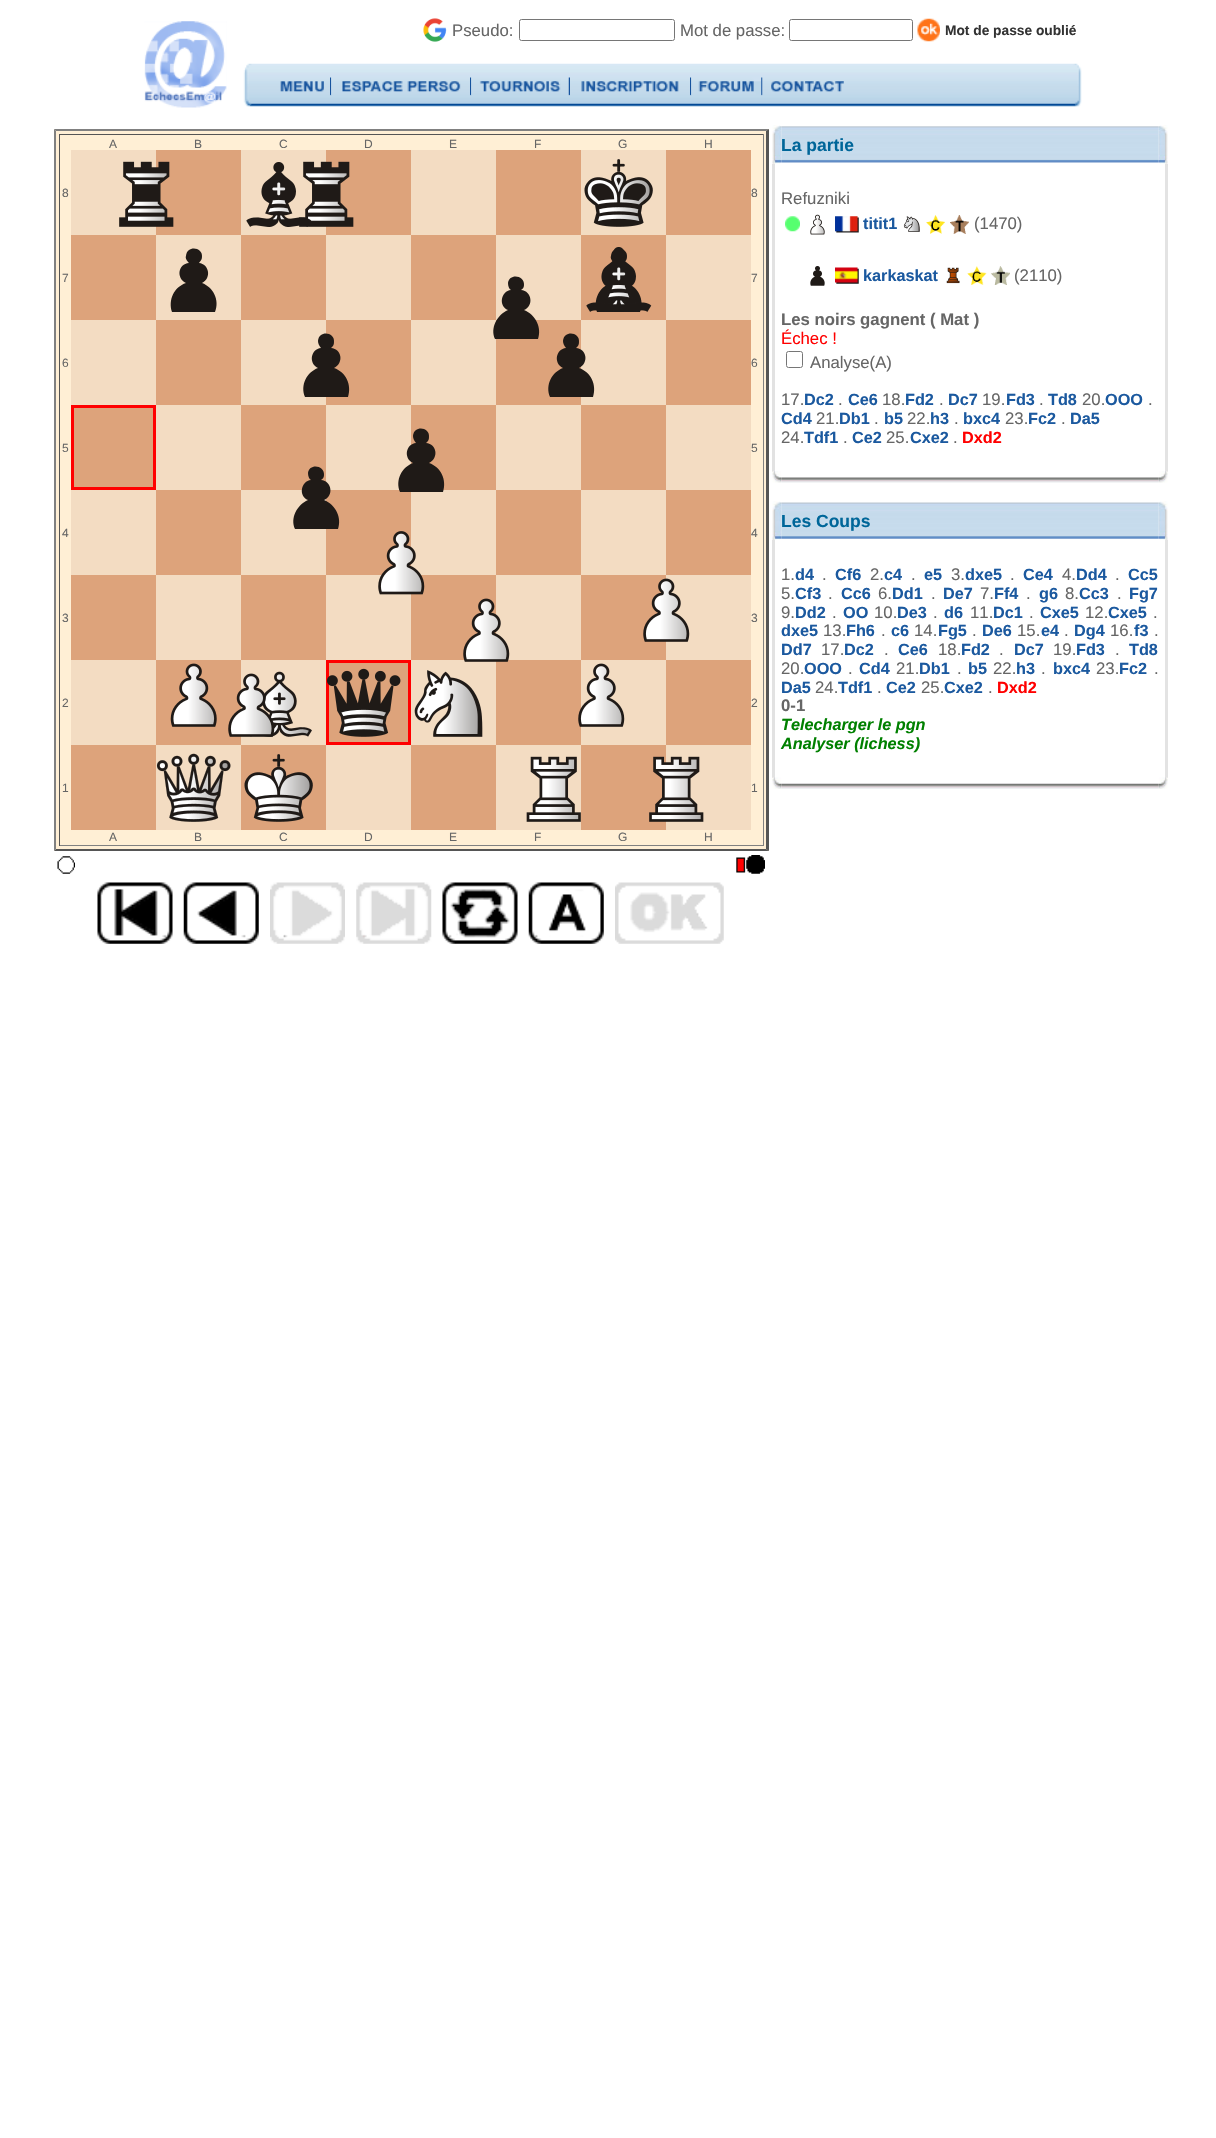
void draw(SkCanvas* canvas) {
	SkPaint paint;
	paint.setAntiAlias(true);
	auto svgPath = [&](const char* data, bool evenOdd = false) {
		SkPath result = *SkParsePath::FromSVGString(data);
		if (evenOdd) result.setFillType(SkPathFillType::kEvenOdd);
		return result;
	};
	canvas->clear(0xffffffff);
	canvas->drawImageRect(SkImages::DeferredFromEncodedData(SkData::MakeFromFileName("img1.png")), SkRect::MakeXYWH(243, 63, 839, 44), SkSamplingOptions());
	canvas->drawImageRect(SkImages::DeferredFromEncodedData(SkData::MakeFromFileName("img2.png")), SkRect::MakeXYWH(144, 21, 83, 87), SkSamplingOptions());
	canvas->drawImageRect(SkImages::DeferredFromEncodedData(SkData::MakeFromFileName("img3.png")), SkRect::MakeXYWH(423, 18, 24, 24), SkSamplingOptions());
	SkFont f1(fontMgr->matchFamilyStyle("Liberation Sans", SkFontStyle::Normal()), 16.75);
	f1.setSubpixel(true);
	paint.setColor(0xff666666);
	canvas->drawString("Pseudo:", 452, 36, f1, paint);
	paint.setStroke(true);
	paint.setStrokeWidth(1);
	paint.setColor(0xff767676);
	canvas->drawRoundRect(SkRect::MakeXYWH(519.5, 19.5, 155, 21), 2, 2, paint);
	paint.setStroke(false);
	paint.setColor(0xff666666);
	canvas->drawString("Mot de passe:", 680, 36, f1, paint);
	paint.setStroke(true);
	paint.setColor(0xff767676);
	canvas->drawRoundRect(SkRect::MakeXYWH(789.5, 19.5, 123, 21), 2, 2, paint);
	canvas->drawImageRect(SkImages::DeferredFromEncodedData(SkData::MakeFromFileName("img4.png")), SkRect::MakeXYWH(917, 18, 23, 24), SkSamplingOptions());
	SkFont f2(fontMgr->matchFamilyStyle("Liberation Sans", SkFontStyle::Bold()), 13.75);
	f2.setSubpixel(true);
	paint.setStroke(false);
	paint.setColor(0xff333333);
	canvas->drawString("Mot de passe oublié", 945, 35, f2, paint);
	canvas->drawImageRect(SkImages::DeferredFromEncodedData(SkData::MakeFromFileName("img5.png")), SkRect::MakeXYWH(330, 77, 2, 19), SkSamplingOptions());
	canvas->drawImageRect(SkImages::DeferredFromEncodedData(SkData::MakeFromFileName("img6.png")), SkRect::MakeXYWH(331, 77, 130, 18), SkSamplingOptions());
	canvas->drawImageRect(SkImages::DeferredFromEncodedData(SkData::MakeFromFileName("img5.png")), SkRect::MakeXYWH(470, 77, 2, 19), SkSamplingOptions());
	canvas->drawImageRect(SkImages::DeferredFromEncodedData(SkData::MakeFromFileName("img7.png")), SkRect::MakeXYWH(471, 77, 90, 18), SkSamplingOptions());
	canvas->drawImageRect(SkImages::DeferredFromEncodedData(SkData::MakeFromFileName("img8.png")), SkRect::MakeXYWH(568, 77, 2, 19), SkSamplingOptions());
	canvas->drawImageRect(SkImages::DeferredFromEncodedData(SkData::MakeFromFileName("img5.png")), SkRect::MakeXYWH(690, 77, 2, 19), SkSamplingOptions());
	canvas->drawImageRect(SkImages::DeferredFromEncodedData(SkData::MakeFromFileName("img9.png")), SkRect::MakeXYWH(691, 77, 70, 18), SkSamplingOptions());
	canvas->drawImageRect(SkImages::DeferredFromEncodedData(SkData::MakeFromFileName("img10.png")), SkRect::MakeXYWH(761, 77, 2, 19), SkSamplingOptions());
	canvas->drawImageRect(SkImages::DeferredFromEncodedData(SkData::MakeFromFileName("img11.png")), SkRect::MakeXYWH(280, 81, 44, 11), SkSamplingOptions());
	canvas->drawImageRect(SkImages::DeferredFromEncodedData(SkData::MakeFromFileName("img12.png")), SkRect::MakeXYWH(581, 81, 98, 11), SkSamplingOptions());
	canvas->drawImageRect(SkImages::DeferredFromEncodedData(SkData::MakeFromFileName("img13.png")), SkRect::MakeXYWH(762, 77, 82, 19), SkSamplingOptions());
	paint.setColor(0xffffefd5);
	canvas->drawRect(SkRect::MakeXYWH(54, 129, 715, 722), paint);
	paint.setColor(0xff808080);
	canvas->drawPath(svgPath("M54 129H769L766 131H56Z"), paint);
	paint.setColor(0xff555555);
	canvas->drawPath(svgPath("M769 129V851L766 849V131Z"), paint);
	canvas->drawPath(svgPath("M769 851H54L56 849H766Z"), paint);
	paint.setColor(0xff808080);
	canvas->drawPath(svgPath("M54 851V129L56 131V849Z"), paint);
	paint.setColor(0xff555555);
	canvas->drawRect(SkRect::MakeXYWH(59, 134, 705, 1), paint);
	paint.setColor(0xff808080);
	canvas->drawRect(SkRect::MakeXYWH(763, 134, 1, 712), paint);
	canvas->drawRect(SkRect::MakeXYWH(59, 845, 705, 1), paint);
	paint.setColor(0xff555555);
	canvas->drawRect(SkRect::MakeXYWH(59, 134, 1, 712), paint);
	SkFont f3(fontMgr->matchFamilyStyle("Liberation Sans", SkFontStyle::Normal()), 12);
	f3.setSubpixel(true);
	paint.setColor(0xff666666);
	canvas->drawString("A", 109, 148, f3, paint);
	canvas->drawString("B", 194, 148, f3, paint);
	canvas->drawString("C", 279, 148, f3, paint);
	canvas->drawString("D", 364, 148, f3, paint);
	canvas->drawString("E", 449, 148, f3, paint);
	canvas->drawString("F", 534, 148, f3, paint);
	canvas->drawString("G", 618, 148, f3, paint);
	canvas->drawString("H", 704, 148, f3, paint);
	canvas->drawString("8", 62, 197, f3, paint);
	paint.setColor(0xfff3dcc2);
	canvas->drawRect(SkRect::MakeXYWH(71, 150, 85, 85), paint);
	paint.setColor(0xffdda37b);
	canvas->drawRect(SkRect::MakeXYWH(156, 150, 85, 85), paint);
	paint.setColor(0xfff3dcc2);
	canvas->drawRect(SkRect::MakeXYWH(241, 150, 85, 85), paint);
	paint.setColor(0xffdda37b);
	canvas->drawRect(SkRect::MakeXYWH(326, 150, 85, 85), paint);
	paint.setColor(0xfff3dcc2);
	canvas->drawRect(SkRect::MakeXYWH(411, 150, 85, 85), paint);
	paint.setColor(0xffdda37b);
	canvas->drawRect(SkRect::MakeXYWH(496, 150, 85, 85), paint);
	paint.setColor(0xfff3dcc2);
	canvas->drawRect(SkRect::MakeXYWH(581, 150, 85, 85), paint);
	paint.setColor(0xffdda37b);
	canvas->drawRect(SkRect::MakeXYWH(666, 150, 85, 85), paint);
	paint.setColor(0xff666666);
	canvas->drawString("8", 751, 197, f3, paint);
	canvas->drawString("7", 62, 282, f3, paint);
	paint.setColor(0xffdda37b);
	canvas->drawRect(SkRect::MakeXYWH(71, 235, 85, 85), paint);
	paint.setColor(0xfff3dcc2);
	canvas->drawRect(SkRect::MakeXYWH(156, 235, 85, 85), paint);
	paint.setColor(0xffdda37b);
	canvas->drawRect(SkRect::MakeXYWH(241, 235, 85, 85), paint);
	paint.setColor(0xfff3dcc2);
	canvas->drawRect(SkRect::MakeXYWH(326, 235, 85, 85), paint);
	paint.setColor(0xffdda37b);
	canvas->drawRect(SkRect::MakeXYWH(411, 235, 85, 85), paint);
	paint.setColor(0xfff3dcc2);
	canvas->drawRect(SkRect::MakeXYWH(496, 235, 85, 85), paint);
	paint.setColor(0xffdda37b);
	canvas->drawRect(SkRect::MakeXYWH(581, 235, 85, 85), paint);
	paint.setColor(0xfff3dcc2);
	canvas->drawRect(SkRect::MakeXYWH(666, 235, 85, 85), paint);
	paint.setColor(0xff666666);
	canvas->drawString("7", 751, 282, f3, paint);
	canvas->drawString("6", 62, 367, f3, paint);
	paint.setColor(0xfff3dcc2);
	canvas->drawRect(SkRect::MakeXYWH(71, 320, 85, 85), paint);
	paint.setColor(0xffdda37b);
	canvas->drawRect(SkRect::MakeXYWH(156, 320, 85, 85), paint);
	paint.setColor(0xfff3dcc2);
	canvas->drawRect(SkRect::MakeXYWH(241, 320, 85, 85), paint);
	paint.setColor(0xffdda37b);
	canvas->drawRect(SkRect::MakeXYWH(326, 320, 85, 85), paint);
	paint.setColor(0xfff3dcc2);
	canvas->drawRect(SkRect::MakeXYWH(411, 320, 85, 85), paint);
	paint.setColor(0xffdda37b);
	canvas->drawRect(SkRect::MakeXYWH(496, 320, 85, 85), paint);
	paint.setColor(0xfff3dcc2);
	canvas->drawRect(SkRect::MakeXYWH(581, 320, 85, 85), paint);
	paint.setColor(0xffdda37b);
	canvas->drawRect(SkRect::MakeXYWH(666, 320, 85, 85), paint);
	paint.setColor(0xff666666);
	canvas->drawString("6", 751, 367, f3, paint);
	canvas->drawString("5", 62, 452, f3, paint);
	paint.setColor(0xffdda37b);
	canvas->drawRect(SkRect::MakeXYWH(72.5, 406.5, 82, 82), paint);
	paint.setStroke(true);
	paint.setStrokeWidth(3);
	paint.setColor(0xffff0000);
	canvas->drawRect(SkRect::MakeXYWH(72.5, 406.5, 82, 82), paint);
	paint.setStroke(false);
	paint.setColor(0xfff3dcc2);
	canvas->drawRect(SkRect::MakeXYWH(156, 405, 85, 85), paint);
	paint.setColor(0xffdda37b);
	canvas->drawRect(SkRect::MakeXYWH(241, 405, 85, 85), paint);
	paint.setColor(0xfff3dcc2);
	canvas->drawRect(SkRect::MakeXYWH(326, 405, 85, 85), paint);
	paint.setColor(0xffdda37b);
	canvas->drawRect(SkRect::MakeXYWH(411, 405, 85, 85), paint);
	paint.setColor(0xfff3dcc2);
	canvas->drawRect(SkRect::MakeXYWH(496, 405, 85, 85), paint);
	paint.setColor(0xffdda37b);
	canvas->drawRect(SkRect::MakeXYWH(581, 405, 85, 85), paint);
	paint.setColor(0xfff3dcc2);
	canvas->drawRect(SkRect::MakeXYWH(666, 405, 85, 85), paint);
	paint.setColor(0xff666666);
	canvas->drawString("5", 751, 452, f3, paint);
	canvas->drawString("4", 62, 537, f3, paint);
	paint.setColor(0xfff3dcc2);
	canvas->drawRect(SkRect::MakeXYWH(71, 490, 85, 85), paint);
	paint.setColor(0xffdda37b);
	canvas->drawRect(SkRect::MakeXYWH(156, 490, 85, 85), paint);
	paint.setColor(0xfff3dcc2);
	canvas->drawRect(SkRect::MakeXYWH(241, 490, 85, 85), paint);
	paint.setColor(0xffdda37b);
	canvas->drawRect(SkRect::MakeXYWH(326, 490, 85, 85), paint);
	paint.setColor(0xfff3dcc2);
	canvas->drawRect(SkRect::MakeXYWH(411, 490, 85, 85), paint);
	paint.setColor(0xffdda37b);
	canvas->drawRect(SkRect::MakeXYWH(496, 490, 85, 85), paint);
	paint.setColor(0xfff3dcc2);
	canvas->drawRect(SkRect::MakeXYWH(581, 490, 85, 85), paint);
	paint.setColor(0xffdda37b);
	canvas->drawRect(SkRect::MakeXYWH(666, 490, 85, 85), paint);
	paint.setColor(0xff666666);
	canvas->drawString("4", 751, 537, f3, paint);
	canvas->drawString("3", 62, 622, f3, paint);
	paint.setColor(0xffdda37b);
	canvas->drawRect(SkRect::MakeXYWH(71, 575, 85, 85), paint);
	paint.setColor(0xfff3dcc2);
	canvas->drawRect(SkRect::MakeXYWH(156, 575, 85, 85), paint);
	paint.setColor(0xffdda37b);
	canvas->drawRect(SkRect::MakeXYWH(241, 575, 85, 85), paint);
	paint.setColor(0xfff3dcc2);
	canvas->drawRect(SkRect::MakeXYWH(326, 575, 85, 85), paint);
	paint.setColor(0xffdda37b);
	canvas->drawRect(SkRect::MakeXYWH(411, 575, 85, 85), paint);
	paint.setColor(0xfff3dcc2);
	canvas->drawRect(SkRect::MakeXYWH(496, 575, 85, 85), paint);
	paint.setColor(0xffdda37b);
	canvas->drawRect(SkRect::MakeXYWH(581, 575, 85, 85), paint);
	paint.setColor(0xfff3dcc2);
	canvas->drawRect(SkRect::MakeXYWH(666, 575, 85, 85), paint);
	paint.setColor(0xff666666);
	canvas->drawString("3", 751, 622, f3, paint);
	canvas->drawString("2", 62, 707, f3, paint);
	paint.setColor(0xfff3dcc2);
	canvas->drawRect(SkRect::MakeXYWH(71, 660, 85, 85), paint);
	paint.setColor(0xffdda37b);
	canvas->drawRect(SkRect::MakeXYWH(156, 660, 85, 85), paint);
	paint.setColor(0xfff3dcc2);
	canvas->drawRect(SkRect::MakeXYWH(241, 660, 85, 85), paint);
	paint.setColor(0xffdda37b);
	canvas->drawRect(SkRect::MakeXYWH(327.5, 661.5, 82, 82), paint);
	paint.setStroke(true);
	paint.setColor(0xffff0000);
	canvas->drawRect(SkRect::MakeXYWH(327.5, 661.5, 82, 82), paint);
	paint.setStroke(false);
	paint.setColor(0xfff3dcc2);
	canvas->drawRect(SkRect::MakeXYWH(411, 660, 85, 85), paint);
	paint.setColor(0xffdda37b);
	canvas->drawRect(SkRect::MakeXYWH(496, 660, 85, 85), paint);
	paint.setColor(0xfff3dcc2);
	canvas->drawRect(SkRect::MakeXYWH(581, 660, 85, 85), paint);
	paint.setColor(0xffdda37b);
	canvas->drawRect(SkRect::MakeXYWH(666, 660, 85, 85), paint);
	paint.setColor(0xff666666);
	canvas->drawString("2", 751, 707, f3, paint);
	canvas->drawString("1", 62, 792, f3, paint);
	paint.setColor(0xffdda37b);
	canvas->drawRect(SkRect::MakeXYWH(71, 745, 85, 85), paint);
	paint.setColor(0xfff3dcc2);
	canvas->drawRect(SkRect::MakeXYWH(156, 745, 85, 85), paint);
	paint.setColor(0xffdda37b);
	canvas->drawRect(SkRect::MakeXYWH(241, 745, 85, 85), paint);
	paint.setColor(0xfff3dcc2);
	canvas->drawRect(SkRect::MakeXYWH(326, 745, 85, 85), paint);
	paint.setColor(0xffdda37b);
	canvas->drawRect(SkRect::MakeXYWH(411, 745, 85, 85), paint);
	paint.setColor(0xfff3dcc2);
	canvas->drawRect(SkRect::MakeXYWH(496, 745, 85, 85), paint);
	paint.setColor(0xffdda37b);
	canvas->drawRect(SkRect::MakeXYWH(581, 745, 85, 85), paint);
	paint.setColor(0xfff3dcc2);
	canvas->drawRect(SkRect::MakeXYWH(666, 745, 85, 85), paint);
	paint.setColor(0xff666666);
	canvas->drawString("1", 751, 792, f3, paint);
	canvas->drawString("A", 109, 841, f3, paint);
	canvas->drawString("B", 194, 841, f3, paint);
	canvas->drawString("C", 279, 841, f3, paint);
	canvas->drawString("D", 364, 841, f3, paint);
	canvas->drawString("E", 449, 841, f3, paint);
	canvas->drawString("F", 534, 841, f3, paint);
	canvas->drawString("G", 618, 841, f3, paint);
	canvas->drawString("H", 704, 841, f3, paint);
	canvas->drawImageRect(SkImages::DeferredFromEncodedData(SkData::MakeFromFileName("img14.png")), SkRect::MakeXYWH(57, 856, 18, 18), SkSamplingOptions());
	canvas->drawImageRect(SkImages::DeferredFromEncodedData(SkData::MakeFromFileName("img15.png")), SkRect::MakeXYWH(736, 857, 10, 16), SkSamplingOptions());
	canvas->drawImageRect(SkImages::DeferredFromEncodedData(SkData::MakeFromFileName("img16.png")), SkRect::MakeXYWH(746, 855, 19, 19), SkSamplingOptions());
	canvas->drawImageRect(SkImages::DeferredFromEncodedData(SkData::MakeFromFileName("img17.png")), SkRect::MakeXYWH(97, 882, 76, 62), SkSamplingOptions());
	canvas->drawImageRect(SkImages::DeferredFromEncodedData(SkData::MakeFromFileName("img18.png")), SkRect::MakeXYWH(183, 882, 76, 62), SkSamplingOptions());
	canvas->drawImageRect(SkImages::DeferredFromEncodedData(SkData::MakeFromFileName("img19.png")), SkRect::MakeXYWH(270, 882, 75, 62), SkSamplingOptions());
	canvas->drawImageRect(SkImages::DeferredFromEncodedData(SkData::MakeFromFileName("img20.png")), SkRect::MakeXYWH(356, 882, 76, 62), SkSamplingOptions());
	canvas->drawImageRect(SkImages::DeferredFromEncodedData(SkData::MakeFromFileName("img21.png")), SkRect::MakeXYWH(442, 882, 76, 62), SkSamplingOptions());
	canvas->drawImageRect(SkImages::DeferredFromEncodedData(SkData::MakeFromFileName("img22.png")), SkRect::MakeXYWH(528, 882, 76, 62), SkSamplingOptions());
	canvas->drawImageRect(SkImages::DeferredFromEncodedData(SkData::MakeFromFileName("img23.png")), SkRect::MakeXYWH(615, 882, 109, 62), SkSamplingOptions());
	canvas->drawImageRect(SkImages::DeferredFromEncodedData(SkData::MakeFromFileName("img24.png")), SkRect::MakeXYWH(119, 161, 55, 66), SkSamplingOptions());
	canvas->drawImageRect(SkImages::DeferredFromEncodedData(SkData::MakeFromFileName("img26.png")), SkRect::MakeXYWH(299, 161, 55, 66), SkSamplingOptions());
	canvas->drawImageRect(SkImages::DeferredFromEncodedData(SkData::MakeFromFileName("img25.png")), SkRect::MakeXYWH(246, 162, 66, 65), SkSamplingOptions());
	canvas->drawImageRect(SkImages::DeferredFromEncodedData(SkData::MakeFromFileName("img27.png")), SkRect::MakeXYWH(584, 159, 69, 68), SkSamplingOptions());
	paint.setColor(0xff1f1a17);
	canvas->drawPath(svgPath("M194 312H172C168 300 174 287 186 283C176 278 178 264 189 263C187 261 185 258 186 256C187 245 203 247 202 257C202 260 200 261 199 263C209 264 212 278 202 283C213 287 220 300 215 312Z", true), paint);
	canvas->drawPath(svgPath("M619 312H597C593 300 599 287 611 283C601 278 603 264 614 263C612 261 610 258 611 256C612 245 628 247 627 257C627 260 625 261 624 263C634 264 637 278 627 283C638 287 645 300 640 312Z", true), paint);
	canvas->drawImageRect(SkImages::DeferredFromEncodedData(SkData::MakeFromFileName("img28.png")), SkRect::MakeXYWH(586, 247, 66, 65), SkSamplingOptions());
	canvas->drawPath(svgPath("M516 339H495C490 328 497 315 508 310C498 306 501 291 511 290C509 289 508 286 508 283C509 273 525 275 524 285C524 287 523 289 521 290C532 291 534 306 524 310C536 315 542 328 538 339Z", true), paint);
	canvas->drawPath(svgPath("M326 397H305C300 385 307 372 318 368C308 363 311 349 321 348C319 346 318 343 318 341C319 330 335 332 334 342C334 345 333 346 331 348C342 349 344 363 334 368C346 372 352 385 348 397Z", true), paint);
	canvas->drawPath(svgPath("M571 397H550C545 385 552 372 563 368C553 363 556 349 566 348C564 346 563 343 563 341C564 330 580 332 579 342C579 345 578 346 576 348C587 349 589 363 579 368C591 372 597 385 593 397Z", true), paint);
	canvas->drawPath(svgPath("M316 529H295C290 518 297 505 308 500C298 496 301 481 311 480C309 479 308 476 308 473C309 463 325 465 324 475C324 477 323 479 321 480C332 481 334 496 324 500C336 505 342 518 338 529Z", true), paint);
	canvas->drawPath(svgPath("M421 492H400C395 480 402 467 413 463C403 458 406 444 416 443C414 441 413 438 413 436C414 425 430 427 429 437C429 440 428 441 426 443C437 444 439 458 429 463C441 467 447 480 443 492Z", true), paint);
	canvas->drawImageRect(SkImages::DeferredFromEncodedData(SkData::MakeFromFileName("img29.png")), SkRect::MakeXYWH(378, 531, 47, 64), SkSamplingOptions());
	canvas->drawImageRect(SkImages::DeferredFromEncodedData(SkData::MakeFromFileName("img30.png")), SkRect::MakeXYWH(463, 598, 47, 64), SkSamplingOptions());
	canvas->drawImageRect(SkImages::DeferredFromEncodedData(SkData::MakeFromFileName("img31.png")), SkRect::MakeXYWH(643, 578, 47, 64), SkSamplingOptions());
	canvas->drawImageRect(SkImages::DeferredFromEncodedData(SkData::MakeFromFileName("img32.png")), SkRect::MakeXYWH(170, 663, 47, 64), SkSamplingOptions());
	canvas->drawImageRect(SkImages::DeferredFromEncodedData(SkData::MakeFromFileName("img33.png")), SkRect::MakeXYWH(250, 671, 62, 66), SkSamplingOptions());
	canvas->drawImageRect(SkImages::DeferredFromEncodedData(SkData::MakeFromFileName("img34.png")), SkRect::MakeXYWH(327, 668, 74, 69), SkSamplingOptions());
	canvas->drawImageRect(SkImages::DeferredFromEncodedData(SkData::MakeFromFileName("img35.png")), SkRect::MakeXYWH(414, 670, 69, 67), SkSamplingOptions());
	canvas->drawImageRect(SkImages::DeferredFromEncodedData(SkData::MakeFromFileName("img36.png")), SkRect::MakeXYWH(578, 663, 47, 64), SkSamplingOptions());
	canvas->drawImageRect(SkImages::DeferredFromEncodedData(SkData::MakeFromFileName("img37.png")), SkRect::MakeXYWH(228, 673, 47, 64), SkSamplingOptions());
	canvas->drawImageRect(SkImages::DeferredFromEncodedData(SkData::MakeFromFileName("img38.png")), SkRect::MakeXYWH(156, 753, 75, 69), SkSamplingOptions());
	canvas->drawImageRect(SkImages::DeferredFromEncodedData(SkData::MakeFromFileName("img39.png")), SkRect::MakeXYWH(244, 754, 69, 68), SkSamplingOptions());
	canvas->drawImageRect(SkImages::DeferredFromEncodedData(SkData::MakeFromFileName("img40.png")), SkRect::MakeXYWH(526, 756, 55, 66), SkSamplingOptions());
	canvas->drawImageRect(SkImages::DeferredFromEncodedData(SkData::MakeFromFileName("img41.png")), SkRect::MakeXYWH(649, 756, 55, 66), SkSamplingOptions());
	canvas->drawImageRect(SkImages::DeferredFromEncodedData(SkData::MakeFromFileName("img42.png")), SkRect::MakeXYWH(772, 125, 10, 39), SkSamplingOptions());
	canvas->drawImageRect(SkImages::DeferredFromEncodedData(SkData::MakeFromFileName("img43.png")), SkRect::MakeXYWH(781, 126, 378, 37), SkSamplingOptions());
	SkFont f4(fontMgr->matchFamilyStyle("Liberation Sans", SkFontStyle::Bold()), 17.5);
	f4.setSubpixel(true);
	paint.setColor(0xff006699);
	canvas->drawString("La partie", 781, 151, f4, paint);
	canvas->drawImageRect(SkImages::DeferredFromEncodedData(SkData::MakeFromFileName("img44.png")), SkRect::MakeXYWH(1158, 125, 10, 39), SkSamplingOptions());
	paint.setColor(0xffe2e2e2);
	canvas->drawRect(SkRect::MakeXYWH(772, 164, 3, 308), paint);
	paint.setColor(0xff666666);
	canvas->drawString("Refuzniki", 781, 204, f1, paint);
	canvas->drawImageRect(SkImages::DeferredFromEncodedData(SkData::MakeFromFileName("img45.png")), SkRect::MakeXYWH(785, 216, 15, 16), SkSamplingOptions());
	canvas->drawImageRect(SkImages::DeferredFromEncodedData(SkData::MakeFromFileName("img46.png")), SkRect::MakeXYWH(810, 214, 15, 21), SkSamplingOptions());
	canvas->drawImageRect(SkImages::DeferredFromEncodedData(SkData::MakeFromFileName("img47.png")), SkRect::MakeXYWH(835, 216, 24, 17), SkSamplingOptions());
	SkFont f5(fontMgr->matchFamilyStyle("Liberation Sans", SkFontStyle::Bold()), 16.25);
	f5.setSubpixel(true);
	paint.setColor(0xff1b599f);
	canvas->drawString("titit1", 863, 229, f5, paint);
	canvas->drawImageRect(SkImages::DeferredFromEncodedData(SkData::MakeFromFileName("img48.png")), SkRect::MakeXYWH(903, 216, 17, 16), SkSamplingOptions());
	canvas->drawImageRect(SkImages::DeferredFromEncodedData(SkData::MakeFromFileName("img49.png")), SkRect::MakeXYWH(926, 215, 19, 19), SkSamplingOptions());
	canvas->drawImageRect(SkImages::DeferredFromEncodedData(SkData::MakeFromFileName("img50.png")), SkRect::MakeXYWH(950, 215, 19, 19), SkSamplingOptions());
	paint.setColor(0xff666666);
	canvas->drawString("(1470)", 974, 229, f1, paint);
	canvas->drawImageRect(SkImages::DeferredFromEncodedData(SkData::MakeFromFileName("img51.png")), SkRect::MakeXYWH(810, 266, 15, 20), SkSamplingOptions());
	canvas->drawImageRect(SkImages::DeferredFromEncodedData(SkData::MakeFromFileName("img52.png")), SkRect::MakeXYWH(835, 267, 24, 17), SkSamplingOptions());
	paint.setColor(0xff1b599f);
	canvas->drawString("karkaskat", 863, 281, f5, paint);
	canvas->drawImageRect(SkImages::DeferredFromEncodedData(SkData::MakeFromFileName("img53.png")), SkRect::MakeXYWH(946, 267, 14, 17), SkSamplingOptions());
	canvas->drawImageRect(SkImages::DeferredFromEncodedData(SkData::MakeFromFileName("img54.png")), SkRect::MakeXYWH(967, 266, 20, 19), SkSamplingOptions());
	canvas->drawImageRect(SkImages::DeferredFromEncodedData(SkData::MakeFromFileName("img55.png")), SkRect::MakeXYWH(991, 266, 19, 19), SkSamplingOptions());
	paint.setColor(0xff666666);
	canvas->drawString("(2110)", 1014, 281, f1, paint);
	SkFont f6(fontMgr->matchFamilyStyle("Liberation Sans", SkFontStyle::Bold()), 16.75);
	f6.setSubpixel(true);
	canvas->drawString("Les noirs gagnent ( Mat )", 781, 325, f6, paint);
	paint.setColor(0xffff0000);
	canvas->drawString("Échec !", 781, 344, f1, paint);
	paint.setStroke(true);
	paint.setStrokeWidth(1);
	paint.setColor(0xff767676);
	canvas->drawRoundRect(SkRect::MakeXYWH(786.5, 351.5, 16, 16), 2, 2, paint);
	paint.setStroke(false);
	paint.setColor(0xff666666);
	canvas->drawString("Analyse(A)", 810, 368, f1, paint);
	canvas->drawString("17.", 781, 405, f1, paint);
	paint.setColor(0xff1b599f);
	canvas->drawString("Dc2", 804, 405, f5, paint);
	paint.setColor(0xff666666);
	canvas->drawString(".", 838, 405, f1, paint);
	paint.setColor(0xff1b599f);
	canvas->drawString("Ce6", 848, 405, f5, paint);
	paint.setColor(0xff666666);
	canvas->drawString("18.", 882, 405, f1, paint);
	paint.setColor(0xff1b599f);
	canvas->drawString("Fd2", 905, 405, f5, paint);
	paint.setColor(0xff666666);
	canvas->drawString(".", 939, 405, f1, paint);
	paint.setColor(0xff1b599f);
	canvas->drawString("Dc7", 948, 405, f5, paint);
	paint.setColor(0xff666666);
	canvas->drawString("19.", 982, 405, f1, paint);
	paint.setColor(0xff1b599f);
	canvas->drawString("Fd3", 1006, 405, f5, paint);
	paint.setColor(0xff666666);
	canvas->drawString(".", 1039, 405, f1, paint);
	paint.setColor(0xff1b599f);
	canvas->drawString("Td8", 1048, 405, f5, paint);
	paint.setColor(0xff666666);
	canvas->drawString("20.", 1082, 405, f1, paint);
	paint.setColor(0xff1b599f);
	canvas->drawString("OOO", 1105, 405, f5, paint);
	paint.setColor(0xff666666);
	canvas->drawString(".", 1148, 405, f1, paint);
	paint.setColor(0xff1b599f);
	canvas->drawString("Cd4", 781, 424, f5, paint);
	paint.setColor(0xff666666);
	canvas->drawString("21.", 816, 424, f1, paint);
	paint.setColor(0xff1b599f);
	canvas->drawString("Db1", 839, 424, f5, paint);
	paint.setColor(0xff666666);
	canvas->drawString(".", 874, 424, f1, paint);
	paint.setColor(0xff1b599f);
	canvas->drawString("b5", 884, 424, f5, paint);
	paint.setColor(0xff666666);
	canvas->drawString("22.", 907, 424, f1, paint);
	paint.setColor(0xff1b599f);
	canvas->drawString("h3", 930, 424, f5, paint);
	paint.setColor(0xff666666);
	canvas->drawString(".", 954, 424, f1, paint);
	paint.setColor(0xff1b599f);
	canvas->drawString("bxc4", 963, 424, f5, paint);
	paint.setColor(0xff666666);
	canvas->drawString("23.", 1005, 424, f1, paint);
	paint.setColor(0xff1b599f);
	canvas->drawString("Fc2", 1028, 424, f5, paint);
	paint.setColor(0xff666666);
	canvas->drawString(".", 1061, 424, f1, paint);
	paint.setColor(0xff1b599f);
	canvas->drawString("Da5", 1070, 424, f5, paint);
	paint.setColor(0xff666666);
	canvas->drawString("24.", 781, 443, f1, paint);
	paint.setColor(0xff1b599f);
	canvas->drawString("Tdf1", 804, 443, f5, paint);
	paint.setColor(0xff666666);
	canvas->drawString(".", 843, 443, f1, paint);
	paint.setColor(0xff1b599f);
	canvas->drawString("Ce2", 852, 443, f5, paint);
	paint.setColor(0xff666666);
	canvas->drawString("25.", 886, 443, f1, paint);
	paint.setColor(0xff1b599f);
	canvas->drawString("Cxe2", 910, 443, f5, paint);
	paint.setColor(0xff666666);
	canvas->drawString(".", 953, 443, f1, paint);
	paint.setColor(0xffff0000);
	canvas->drawString("Dxd2", 962, 443, f5, paint);
	paint.setColor(0xffe3e3e3);
	canvas->drawRect(SkRect::MakeXYWH(1165, 164, 3, 308), paint);
	canvas->drawImageRect(SkImages::DeferredFromEncodedData(SkData::MakeFromFileName("img56.png")), SkRect::MakeXYWH(772, 471, 10, 12), SkSamplingOptions());
	canvas->drawImageRect(SkImages::DeferredFromEncodedData(SkData::MakeFromFileName("img57.png")), SkRect::MakeXYWH(781, 477, 378, 6), SkSamplingOptions());
	canvas->drawImageRect(SkImages::DeferredFromEncodedData(SkData::MakeFromFileName("img58.png")), SkRect::MakeXYWH(1158, 471, 10, 12), SkSamplingOptions());
	canvas->drawImageRect(SkImages::DeferredFromEncodedData(SkData::MakeFromFileName("img59.png")), SkRect::MakeXYWH(772, 501, 10, 39), SkSamplingOptions());
	canvas->drawImageRect(SkImages::DeferredFromEncodedData(SkData::MakeFromFileName("img60.png")), SkRect::MakeXYWH(781, 502, 378, 37), SkSamplingOptions());
	paint.setColor(0xff006699);
	canvas->drawString("Les Coups", 781, 527, f4, paint);
	canvas->drawImageRect(SkImages::DeferredFromEncodedData(SkData::MakeFromFileName("img61.png")), SkRect::MakeXYWH(1158, 501, 10, 39), SkSamplingOptions());
	paint.setColor(0xffe2e2e2);
	canvas->drawRect(SkRect::MakeXYWH(772, 540, 3, 238), paint);
	paint.setColor(0xff666666);
	canvas->drawString("1.", 781, 580, f1, paint);
	paint.setColor(0xff1b599f);
	canvas->drawString("d4", 795, 580, f5, paint);
	paint.setColor(0xff666666);
	canvas->drawString(".", 822, 580, f1, paint);
	paint.setColor(0xff1b599f);
	canvas->drawString("Cf6", 835, 580, f5, paint);
	paint.setColor(0xff666666);
	canvas->drawString("2.", 870, 580, f1, paint);
	paint.setColor(0xff1b599f);
	canvas->drawString("c4", 884, 580, f5, paint);
	paint.setColor(0xff666666);
	canvas->drawString(".", 911, 580, f1, paint);
	paint.setColor(0xff1b599f);
	canvas->drawString("e5", 924, 580, f5, paint);
	paint.setColor(0xff666666);
	canvas->drawString("3.", 951, 580, f1, paint);
	paint.setColor(0xff1b599f);
	canvas->drawString("dxe5", 965, 580, f5, paint);
	paint.setColor(0xff666666);
	canvas->drawString(".", 1010, 580, f1, paint);
	paint.setColor(0xff1b599f);
	canvas->drawString("Ce4", 1023, 580, f5, paint);
	paint.setColor(0xff666666);
	canvas->drawString("4.", 1062, 580, f1, paint);
	paint.setColor(0xff1b599f);
	canvas->drawString("Dd4", 1076, 580, f5, paint);
	paint.setColor(0xff666666);
	canvas->drawString(".", 1115, 580, f1, paint);
	paint.setColor(0xff1b599f);
	canvas->drawString("Cc5", 1128, 580, f5, paint);
	paint.setColor(0xff666666);
	canvas->drawString("5.", 781, 599, f1, paint);
	paint.setColor(0xff1b599f);
	canvas->drawString("Cf3", 795, 599, f5, paint);
	paint.setColor(0xff666666);
	canvas->drawString(".", 828, 599, f1, paint);
	paint.setColor(0xff1b599f);
	canvas->drawString("Cc6", 841, 599, f5, paint);
	paint.setColor(0xff666666);
	canvas->drawString("6.", 878, 599, f1, paint);
	paint.setColor(0xff1b599f);
	canvas->drawString("Dd1", 892, 599, f5, paint);
	paint.setColor(0xff666666);
	canvas->drawString(".", 931, 599, f1, paint);
	paint.setColor(0xff1b599f);
	canvas->drawString("De7", 943, 599, f5, paint);
	paint.setColor(0xff666666);
	canvas->drawString("7.", 980, 599, f1, paint);
	paint.setColor(0xff1b599f);
	canvas->drawString("Ff4", 994, 599, f5, paint);
	paint.setColor(0xff666666);
	canvas->drawString(".", 1026, 599, f1, paint);
	paint.setColor(0xff1b599f);
	canvas->drawString("g6", 1039, 599, f5, paint);
	paint.setColor(0xff666666);
	canvas->drawString("8.", 1065, 599, f1, paint);
	paint.setColor(0xff1b599f);
	canvas->drawString("Cc3", 1079, 599, f5, paint);
	paint.setColor(0xff666666);
	canvas->drawString(".", 1117, 599, f1, paint);
	paint.setColor(0xff1b599f);
	canvas->drawString("Fg7", 1129, 599, f5, paint);
	paint.setColor(0xff666666);
	canvas->drawString("9.", 781, 618, f1, paint);
	paint.setColor(0xff1b599f);
	canvas->drawString("Dd2", 795, 618, f5, paint);
	paint.setColor(0xff666666);
	canvas->drawString(".", 832, 618, f1, paint);
	paint.setColor(0xff1b599f);
	canvas->drawString("OO", 843, 618, f5, paint);
	paint.setColor(0xff666666);
	canvas->drawString("10.", 874, 618, f1, paint);
	paint.setColor(0xff1b599f);
	canvas->drawString("De3", 897, 618, f5, paint);
	paint.setColor(0xff666666);
	canvas->drawString(".", 933, 618, f1, paint);
	paint.setColor(0xff1b599f);
	canvas->drawString("d6", 944, 618, f5, paint);
	paint.setColor(0xff666666);
	canvas->drawString("11.", 970, 618, f1, paint);
	paint.setColor(0xff1b599f);
	canvas->drawString("Dc1", 993, 618, f5, paint);
	paint.setColor(0xff666666);
	canvas->drawString(".", 1029, 618, f1, paint);
	paint.setColor(0xff1b599f);
	canvas->drawString("Cxe5", 1040, 618, f5, paint);
	paint.setColor(0xff666666);
	canvas->drawString("12.", 1085, 618, f1, paint);
	paint.setColor(0xff1b599f);
	canvas->drawString("Cxe5", 1108, 618, f5, paint);
	paint.setColor(0xff666666);
	canvas->drawString(".", 1153, 618, f1, paint);
	paint.setColor(0xff1b599f);
	canvas->drawString("dxe5", 781, 636, f5, paint);
	paint.setColor(0xff666666);
	canvas->drawString("13.", 823, 636, f1, paint);
	paint.setColor(0xff1b599f);
	canvas->drawString("Fh6", 846, 636, f5, paint);
	paint.setColor(0xff666666);
	canvas->drawString(".", 881, 636, f1, paint);
	paint.setColor(0xff1b599f);
	canvas->drawString("c6", 891, 636, f5, paint);
	paint.setColor(0xff666666);
	canvas->drawString("14.", 914, 636, f1, paint);
	paint.setColor(0xff1b599f);
	canvas->drawString("Fg5", 938, 636, f5, paint);
	paint.setColor(0xff666666);
	canvas->drawString(".", 972, 636, f1, paint);
	paint.setColor(0xff1b599f);
	canvas->drawString("De6", 982, 636, f5, paint);
	paint.setColor(0xff666666);
	canvas->drawString("15.", 1017, 636, f1, paint);
	paint.setColor(0xff1b599f);
	canvas->drawString("e4", 1041, 636, f5, paint);
	paint.setColor(0xff666666);
	canvas->drawString(".", 1064, 636, f1, paint);
	paint.setColor(0xff1b599f);
	canvas->drawString("Dg4", 1074, 636, f5, paint);
	paint.setColor(0xff666666);
	canvas->drawString("16.", 1110, 636, f1, paint);
	paint.setColor(0xff1b599f);
	canvas->drawString("f3", 1134, 636, f5, paint);
	paint.setColor(0xff666666);
	canvas->drawString(".", 1154, 636, f1, paint);
	paint.setColor(0xff1b599f);
	canvas->drawString("Dd7", 781, 655, f5, paint);
	paint.setColor(0xff666666);
	canvas->drawString("17.", 821, 655, f1, paint);
	paint.setColor(0xff1b599f);
	canvas->drawString("Dc2", 844, 655, f5, paint);
	paint.setColor(0xff666666);
	canvas->drawString(".", 884, 655, f1, paint);
	paint.setColor(0xff1b599f);
	canvas->drawString("Ce6", 898, 655, f5, paint);
	paint.setColor(0xff666666);
	canvas->drawString("18.", 938, 655, f1, paint);
	paint.setColor(0xff1b599f);
	canvas->drawString("Fd2", 961, 655, f5, paint);
	paint.setColor(0xff666666);
	canvas->drawString(".", 999, 655, f1, paint);
	paint.setColor(0xff1b599f);
	canvas->drawString("Dc7", 1014, 655, f5, paint);
	paint.setColor(0xff666666);
	canvas->drawString("19.", 1053, 655, f1, paint);
	paint.setColor(0xff1b599f);
	canvas->drawString("Fd3", 1076, 655, f5, paint);
	paint.setColor(0xff666666);
	canvas->drawString(".", 1115, 655, f1, paint);
	paint.setColor(0xff1b599f);
	canvas->drawString("Td8", 1129, 655, f5, paint);
	paint.setColor(0xff666666);
	canvas->drawString("20.", 781, 674, f1, paint);
	paint.setColor(0xff1b599f);
	canvas->drawString("OOO", 804, 674, f5, paint);
	paint.setColor(0xff666666);
	canvas->drawString(".", 848, 674, f1, paint);
	paint.setColor(0xff1b599f);
	canvas->drawString("Cd4", 859, 674, f5, paint);
	paint.setColor(0xff666666);
	canvas->drawString("21.", 896, 674, f1, paint);
	paint.setColor(0xff1b599f);
	canvas->drawString("Db1", 919, 674, f5, paint);
	paint.setColor(0xff666666);
	canvas->drawString(".", 957, 674, f1, paint);
	paint.setColor(0xff1b599f);
	canvas->drawString("b5", 968, 674, f5, paint);
	paint.setColor(0xff666666);
	canvas->drawString("22.", 993, 674, f1, paint);
	paint.setColor(0xff1b599f);
	canvas->drawString("h3", 1016, 674, f5, paint);
	paint.setColor(0xff666666);
	canvas->drawString(".", 1041, 674, f1, paint);
	paint.setColor(0xff1b599f);
	canvas->drawString("bxc4", 1053, 674, f5, paint);
	paint.setColor(0xff666666);
	canvas->drawString("23.", 1096, 674, f1, paint);
	paint.setColor(0xff1b599f);
	canvas->drawString("Fc2", 1119, 674, f5, paint);
	paint.setColor(0xff666666);
	canvas->drawString(".", 1154, 674, f1, paint);
	paint.setColor(0xff1b599f);
	canvas->drawString("Da5", 781, 693, f5, paint);
	paint.setColor(0xff666666);
	canvas->drawString("24.", 815, 693, f1, paint);
	paint.setColor(0xff1b599f);
	canvas->drawString("Tdf1", 838, 693, f5, paint);
	paint.setColor(0xff666666);
	canvas->drawString(".", 877, 693, f1, paint);
	paint.setColor(0xff1b599f);
	canvas->drawString("Ce2", 886, 693, f5, paint);
	paint.setColor(0xff666666);
	canvas->drawString("25.", 921, 693, f1, paint);
	paint.setColor(0xff1b599f);
	canvas->drawString("Cxe2", 944, 693, f5, paint);
	paint.setColor(0xff666666);
	canvas->drawString(".", 988, 693, f1, paint);
	paint.setColor(0xffff0000);
	canvas->drawString("Dxd2", 997, 693, f5, paint);
	paint.setColor(0xff666666);
	canvas->drawString("0-1", 781, 711, f6, paint);
	SkFont f7(fontMgr->matchFamilyStyle("Liberation Sans", SkFontStyle::BoldItalic()), 16.25);
	f7.setSubpixel(true);
	paint.setColor(0xff008000);
	canvas->drawString("Telecharger le pgn", 781, 730, f7, paint);
	canvas->drawString("Analyser (lichess)", 781, 749, f7, paint);
	paint.setColor(0xffe3e3e3);
	canvas->drawRect(SkRect::MakeXYWH(1165, 540, 3, 238), paint);
	canvas->drawImageRect(SkImages::DeferredFromEncodedData(SkData::MakeFromFileName("img62.png")), SkRect::MakeXYWH(772, 777, 10, 12), SkSamplingOptions());
	canvas->drawImageRect(SkImages::DeferredFromEncodedData(SkData::MakeFromFileName("img63.png")), SkRect::MakeXYWH(781, 783, 378, 6), SkSamplingOptions());
	canvas->drawImageRect(SkImages::DeferredFromEncodedData(SkData::MakeFromFileName("img64.png")), SkRect::MakeXYWH(1158, 777, 10, 12), SkSamplingOptions());
}
